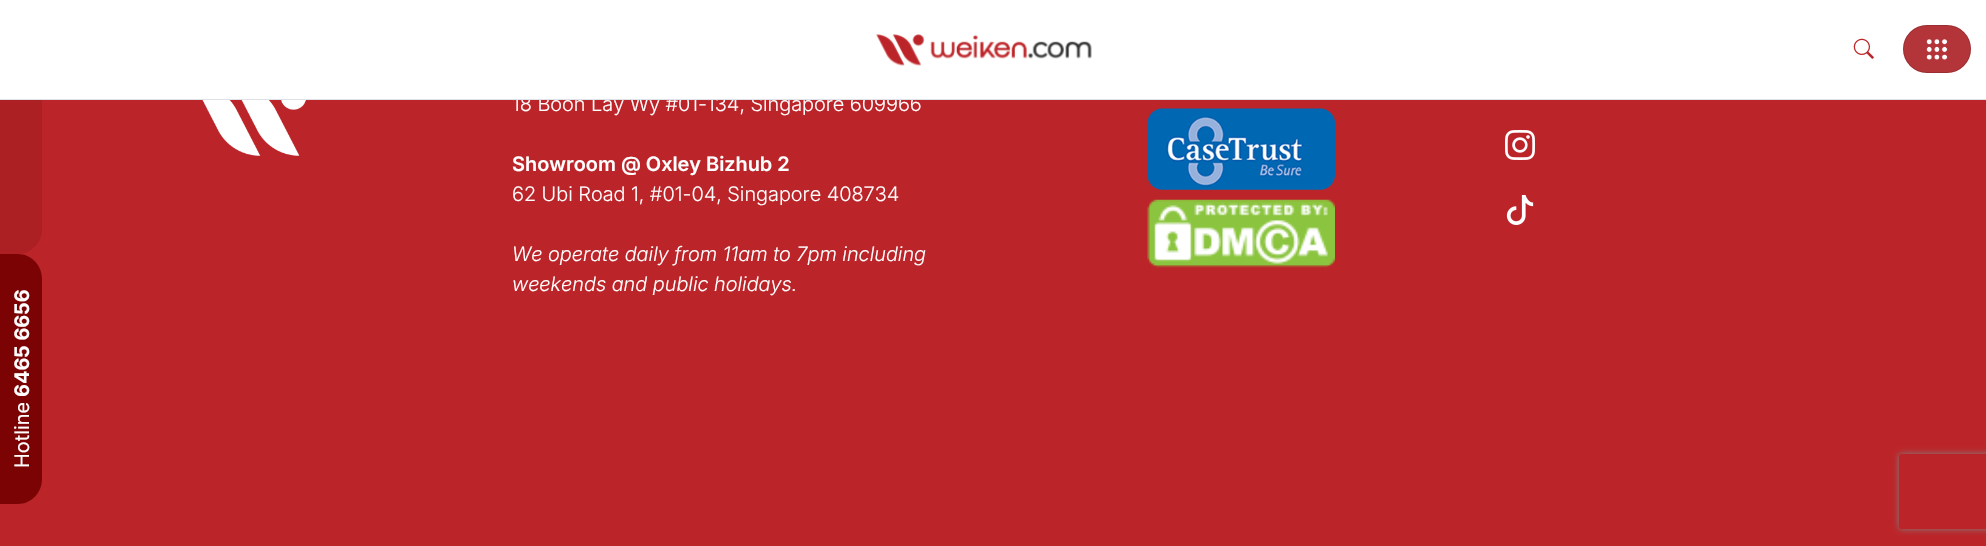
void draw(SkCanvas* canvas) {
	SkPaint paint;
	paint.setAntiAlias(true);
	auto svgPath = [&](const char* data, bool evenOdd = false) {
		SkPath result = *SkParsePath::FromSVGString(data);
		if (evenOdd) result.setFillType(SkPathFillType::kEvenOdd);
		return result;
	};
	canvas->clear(0xffbb2529);
	paint.setColor(0xffac1f23);
	canvas->drawPath(svgPath("M0 254V4H18C31 4 42 15 42 29V229C42 243 31 254 18 254Z"), paint);
	paint.setColor(0xffffffff);
	canvas->drawRect(SkRect::MakeXYWH(0, 0, 1986, 99), paint);
	SkFont f1(fontMgr->matchFamilyStyle("Inter", SkFontStyle(300, SkFontStyle::kNormal_Width, SkFontStyle::kUpright_Slant)), 20);
	f1.setSubpixel(true);
	canvas->drawString("18 Boon Lay Wy #01-134, Singapore 609966", 512, 111, f1, paint);
	paint.setColor(0xffdee2e6);
	canvas->drawRect(SkRect::MakeXYWH(0, 99, 1986, 1), paint);
	canvas->drawImageRect(SkImages::DeferredFromEncodedData(SkData::MakeFromFileName("img1.png")), SkRect::MakeXYWH(876, 34, 216, 32), SkSamplingOptions());
	canvas->drawImageRect(SkImages::DeferredFromEncodedData(SkData::MakeFromFileName("img2.png")), SkRect::MakeXYWH(1853, 38, 21, 21), SkSamplingOptions());
	paint.setColor(0xffb43539);
	canvas->drawRoundRect(SkRect::MakeXYWH(1903, 25, 68, 48), 24, 24, paint);
	paint.setStroke(true);
	paint.setStrokeWidth(1);
	paint.setColor(0x26000000);
	canvas->drawRoundRect(SkRect::MakeXYWH(1903.5, 25.5, 67, 47), 23.5, 23.5, paint);
	canvas->drawImageRect(SkImages::DeferredFromEncodedData(SkData::MakeFromFileName("img3.png")), SkRect::MakeXYWH(1926, 39, 22, 21), SkSamplingOptions());
	canvas->drawImageRect(SkImages::DeferredFromEncodedData(SkData::MakeFromFileName("img4.png")), SkRect::MakeXYWH(202, 100, 104, 56), SkSamplingOptions());
	SkFont f2(fontMgr->matchFamilyStyle("Inter", SkFontStyle(600, SkFontStyle::kNormal_Width, SkFontStyle::kUpright_Slant)), 20);
	f2.setSubpixel(true);
	paint.setStroke(false);
	paint.setColor(0xffffffff);
	canvas->drawString("Showroom @ Oxley Bizhub 2", 512, 171, f2, paint);
	canvas->drawString("62 Ubi Road 1, #01-04, Singapore 408734", 512, 201, f1, paint);
	SkFont f3(fontMgr->matchFamilyStyle("Inter", SkFontStyle(300, SkFontStyle::kNormal_Width, SkFontStyle::kItalic_Slant)), 20);
	f3.setSubpixel(true);
	canvas->drawString("We operate daily from 11am to 7pm including", 512, 261, f3, paint);
	canvas->drawString("weekends and public holidays.", 512, 291, f3, paint);
	canvas->drawImageRect(SkImages::DeferredFromEncodedData(SkData::MakeFromFileName("img5.png")), SkRect::MakeXYWH(1147, 108, 188, 82), SkSamplingOptions());
	canvas->drawImageRect(SkImages::DeferredFromEncodedData(SkData::MakeFromFileName("img6.png")), SkRect::MakeXYWH(1147, 199, 188, 69), SkSamplingOptions());
	canvas->drawImageRect(SkImages::DeferredFromEncodedData(SkData::MakeFromFileName("img7.png")), SkRect::MakeXYWH(1505, 130, 30, 30), SkSamplingOptions());
	canvas->drawImageRect(SkImages::DeferredFromEncodedData(SkData::MakeFromFileName("img8.png")), SkRect::MakeXYWH(1506, 195, 28, 30), SkSamplingOptions());
	paint.setColor(0xff7b0303);
	canvas->drawPath(svgPath("M0 504V254H18C31 254 42 265 42 279V479C42 493 31 504 18 504Z"), paint);
	SkFont f4(fontMgr->matchFamilyStyle("Inter", SkFontStyle::Bold()), 20);
	f4.setSubpixel(true);
	paint.setColor(0xffffffff);
	canvas->save();
	canvas->rotate(-90, 29, 397);
	canvas->drawString("6465 6656", 29, 397, f4, paint);
	canvas->restore();
	SkFont f5(fontMgr->matchFamilyStyle("Inter", SkFontStyle::Normal()), 20);
	f5.setSubpixel(true);
	canvas->save();
	canvas->rotate(-90, 29, 468);
	canvas->drawString("Hotline", 29, 468, f5, paint);
	canvas->restore();
	canvas->save();
	canvas->clipPath(svgPath("M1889 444H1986V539H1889ZM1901.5 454H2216.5C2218 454 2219 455 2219 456.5V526.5C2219 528 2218 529 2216.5 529H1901.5C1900 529 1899 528 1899 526.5V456.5C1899 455 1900 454 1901.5 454Z", true), true);
	paint.setColor(0xff808080);
	paint.setMaskFilter(SkMaskFilter::MakeBlur(kNormal_SkBlurStyle, 3));
	canvas->drawRoundRect(SkRect::MakeXYWH(1899, 454, 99, 75), 2.5, 2.5, paint);
	paint.setMaskFilter(nullptr);
	canvas->restore();
}
